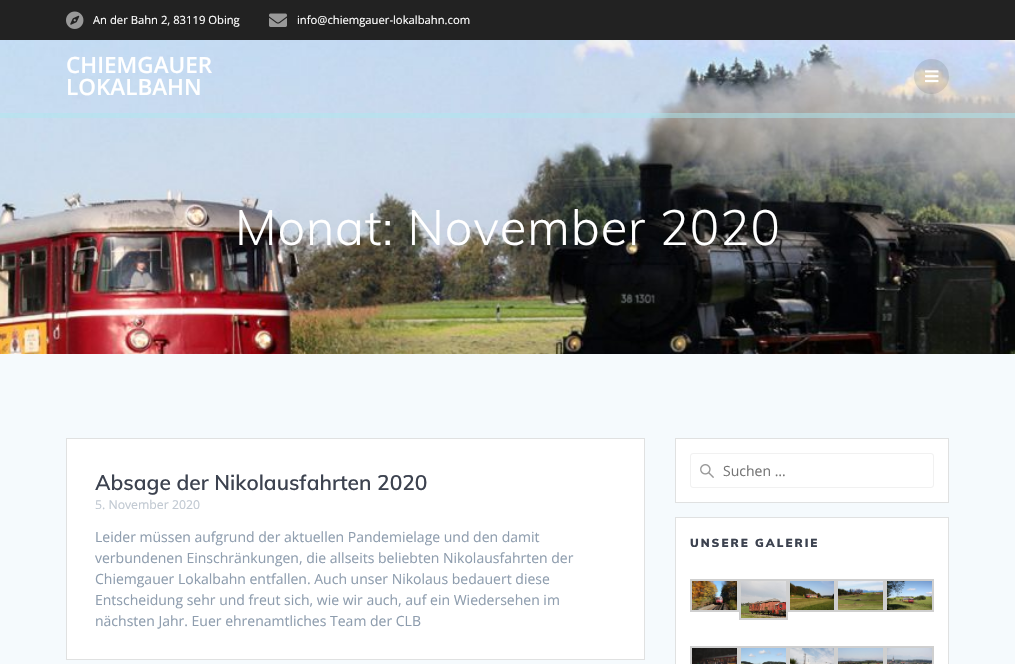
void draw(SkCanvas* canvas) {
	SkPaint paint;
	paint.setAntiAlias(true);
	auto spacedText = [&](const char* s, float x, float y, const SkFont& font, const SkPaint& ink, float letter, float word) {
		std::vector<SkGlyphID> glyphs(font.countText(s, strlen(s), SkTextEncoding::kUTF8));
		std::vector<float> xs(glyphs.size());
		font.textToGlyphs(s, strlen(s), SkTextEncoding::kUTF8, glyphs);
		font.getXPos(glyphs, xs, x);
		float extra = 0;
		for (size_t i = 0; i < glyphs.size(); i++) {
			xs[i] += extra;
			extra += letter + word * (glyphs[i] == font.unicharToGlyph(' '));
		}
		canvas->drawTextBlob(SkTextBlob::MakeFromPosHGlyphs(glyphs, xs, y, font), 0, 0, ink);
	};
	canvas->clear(0xffffffff);
	paint.setColor(0xff222222);
	canvas->drawRect(SkRect::MakeXYWH(0, 0, 1015, 40), paint);
	canvas->drawImageRect(SkImages::DeferredFromEncodedData(SkData::MakeFromFileName("img1.png")), SkRect::MakeXYWH(66, 11, 18, 18), SkSamplingOptions());
	SkFont f1(fontMgr->matchFamilyStyle("Open Sans", SkFontStyle::Normal()), 11.25);
	f1.setSubpixel(true);
	paint.setColor(0xffffffff);
	canvas->drawString("An der Bahn 2, 83119 Obing", 93, 24, f1, paint);
	canvas->drawImageRect(SkImages::DeferredFromEncodedData(SkData::MakeFromFileName("img2.png")), SkRect::MakeXYWH(269, 13, 18, 14), SkSamplingOptions());
	canvas->drawString("info@chiemgauer-lokalbahn.com", 297, 24, f1, paint);
	canvas->drawImageRect(SkImages::DeferredFromEncodedData(SkData::MakeFromFileName("img4.png")), SkRect::MakeXYWH(0, 40, 1015, 314), SkSamplingOptions());
	paint.setColor(0x80ace7ef);
	canvas->drawRect(SkRect::MakeXYWH(0, 113, 1015, 5), paint);
	SkFont f2(fontMgr->matchFamilyStyle("Open Sans", SkFontStyle(600, SkFontStyle::kNormal_Width, SkFontStyle::kUpright_Slant)), 22.5);
	f2.setSubpixel(true);
	paint.setColor(0xffffffff);
	canvas->drawString("CHIEMGAUER", 66, 73, f2, paint);
	canvas->drawString("LOKALBAHN", 66, 95, f2, paint);
	paint.setColor(0x1a000000);
	canvas->drawCircle(931.5, 76.5, 17.5, paint);
	canvas->drawImageRect(SkImages::DeferredFromEncodedData(SkData::MakeFromFileName("img3.png")), SkRect::MakeXYWH(925, 70, 14, 13), SkSamplingOptions());
	SkFont f3(fontMgr->matchFamilyStyle("Muli", SkFontStyle(300, SkFontStyle::kNormal_Width, SkFontStyle::kUpright_Slant)), 49);
	f3.setSubpixel(true);
	paint.setColor(0xffffffff);
	spacedText("Monat: November 2020", 235, 245, f3, paint, 0.9, 0);
	paint.setColor(0xfff5fafd);
	canvas->drawRect(SkRect::MakeXYWH(0, 354, 1015, 310), paint);
	paint.setColor(0xffffffff);
	canvas->drawRect(SkRect::MakeXYWH(66.5, 438.5, 578, 221), paint);
	paint.setStroke(true);
	paint.setStrokeWidth(1);
	paint.setColor(0xffe0e1e1);
	canvas->drawRect(SkRect::MakeXYWH(66.5, 438.5, 578, 221), paint);
	SkFont f4(fontMgr->matchFamilyStyle("Muli", SkFontStyle(600, SkFontStyle::kNormal_Width, SkFontStyle::kUpright_Slant)), 21);
	f4.setSubpixel(true);
	paint.setStroke(false);
	paint.setColor(0xff3c424f);
	canvas->drawString("Absage der Nikolausfahrten 2020", 95, 490, f4, paint);
	SkFont f5(fontMgr->matchFamilyStyle("Open Sans", SkFontStyle::Normal()), 12.25);
	f5.setSubpixel(true);
	paint.setColor(0xffc1c9d2);
	canvas->drawString("5. November 2020", 95, 509, f5, paint);
	SkFont f6(fontMgr->matchFamilyStyle("Open Sans", SkFontStyle::Normal()), 14);
	f6.setSubpixel(true);
	paint.setColor(0xff8e9dae);
	canvas->drawString("Leider müssen aufgrund der aktuellen Pandemielage und den damit", 95, 542, f6, paint);
	canvas->drawString("verbundenen Einschränkungen, die allseits beliebten Nikolausfahrten der", 95, 563, f6, paint);
	canvas->drawString("Chiemgauer Lokalbahn entfallen. Auch unser Nikolaus bedauert diese", 95, 584, f6, paint);
	canvas->drawString("Entscheidung sehr und freut sich, wie wir auch, auf ein Wiedersehen im", 95, 605, f6, paint);
	canvas->drawString("nächsten Jahr. Euer ehrenamtliches Team der CLB", 95, 626, f6, paint);
	paint.setColor(0xffffffff);
	canvas->drawRect(SkRect::MakeXYWH(675.5, 438.5, 273, 64), paint);
	paint.setStroke(true);
	paint.setColor(0xffe0e1e1);
	canvas->drawRect(SkRect::MakeXYWH(675.5, 438.5, 273, 64), paint);
	canvas->drawImageRect(SkImages::DeferredFromEncodedData(SkData::MakeFromFileName("img5.png")), SkRect::MakeXYWH(700, 464, 14, 14), SkSamplingOptions());
	paint.setColor(0xfff1f1f1);
	canvas->drawRoundRect(SkRect::MakeXYWH(690.5, 453.5, 243, 34), 2.5, 2.5, paint);
	paint.setStroke(false);
	paint.setColor(0xff757575);
	canvas->drawString("Suchen …", 723, 476, f6, paint);
	paint.setColor(0xffffffff);
	canvas->drawRect(SkRect::MakeXYWH(675.5, 517.5, 273, 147), paint);
	paint.setStroke(true);
	paint.setColor(0xffe0e1e1);
	canvas->drawRect(SkRect::MakeXYWH(675.5, 517.5, 273, 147), paint);
	SkFont f7(fontMgr->matchFamilyStyle("Muli", SkFontStyle(900, SkFontStyle::kNormal_Width, SkFontStyle::kUpright_Slant)), 11.6);
	f7.setSubpixel(true);
	paint.setStroke(false);
	paint.setColor(0xff3c424f);
	spacedText("UNSERE GALERIE", 690, 547, f7, paint, 2, 0);
	paint.setStroke(true);
	paint.setStrokeWidth(2);
	paint.setColor(0xffcfcfcf);
	canvas->drawRect(SkRect::MakeXYWH(691, 580, 47, 31), paint);
	canvas->drawImageRect(SkImages::DeferredFromEncodedData(SkData::MakeFromFileName("img6.png")), SkRect::MakeXYWH(692, 581, 45, 29), SkSamplingOptions());
	canvas->drawRect(SkRect::MakeXYWH(740, 580, 47, 39), paint);
	canvas->drawImageRect(SkImages::DeferredFromEncodedData(SkData::MakeFromFileName("img7.png")), SkRect::MakeXYWH(741, 581, 45, 37), SkSamplingOptions());
	canvas->drawRect(SkRect::MakeXYWH(789, 580, 46, 31), paint);
	canvas->drawImageRect(SkImages::DeferredFromEncodedData(SkData::MakeFromFileName("img8.png")), SkRect::MakeXYWH(790, 581, 44, 29), SkSamplingOptions());
	canvas->drawRect(SkRect::MakeXYWH(837, 580, 47, 31), paint);
	canvas->drawImageRect(SkImages::DeferredFromEncodedData(SkData::MakeFromFileName("img9.png")), SkRect::MakeXYWH(838, 581, 45, 29), SkSamplingOptions());
	canvas->drawRect(SkRect::MakeXYWH(886, 580, 47, 31), paint);
	canvas->drawImageRect(SkImages::DeferredFromEncodedData(SkData::MakeFromFileName("img10.png")), SkRect::MakeXYWH(887, 581, 45, 29), SkSamplingOptions());
	canvas->drawRect(SkRect::MakeXYWH(691, 647, 47, 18), paint);
	canvas->drawImageRect(SkImages::DeferredFromEncodedData(SkData::MakeFromFileName("img11.png")), SkRect::MakeXYWH(692, 648, 45, 16), SkSamplingOptions());
	canvas->drawRect(SkRect::MakeXYWH(740, 647, 47, 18), paint);
	canvas->drawImageRect(SkImages::DeferredFromEncodedData(SkData::MakeFromFileName("img12.png")), SkRect::MakeXYWH(741, 648, 45, 16), SkSamplingOptions());
	canvas->drawRect(SkRect::MakeXYWH(789, 647, 46, 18), paint);
	canvas->drawImageRect(SkImages::DeferredFromEncodedData(SkData::MakeFromFileName("img13.png")), SkRect::MakeXYWH(790, 648, 44, 16), SkSamplingOptions());
	canvas->drawRect(SkRect::MakeXYWH(837, 647, 47, 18), paint);
	canvas->drawImageRect(SkImages::DeferredFromEncodedData(SkData::MakeFromFileName("img14.png")), SkRect::MakeXYWH(838, 648, 45, 16), SkSamplingOptions());
	canvas->drawRect(SkRect::MakeXYWH(886, 647, 47, 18), paint);
	canvas->drawImageRect(SkImages::DeferredFromEncodedData(SkData::MakeFromFileName("img15.png")), SkRect::MakeXYWH(887, 648, 45, 16), SkSamplingOptions());
}
